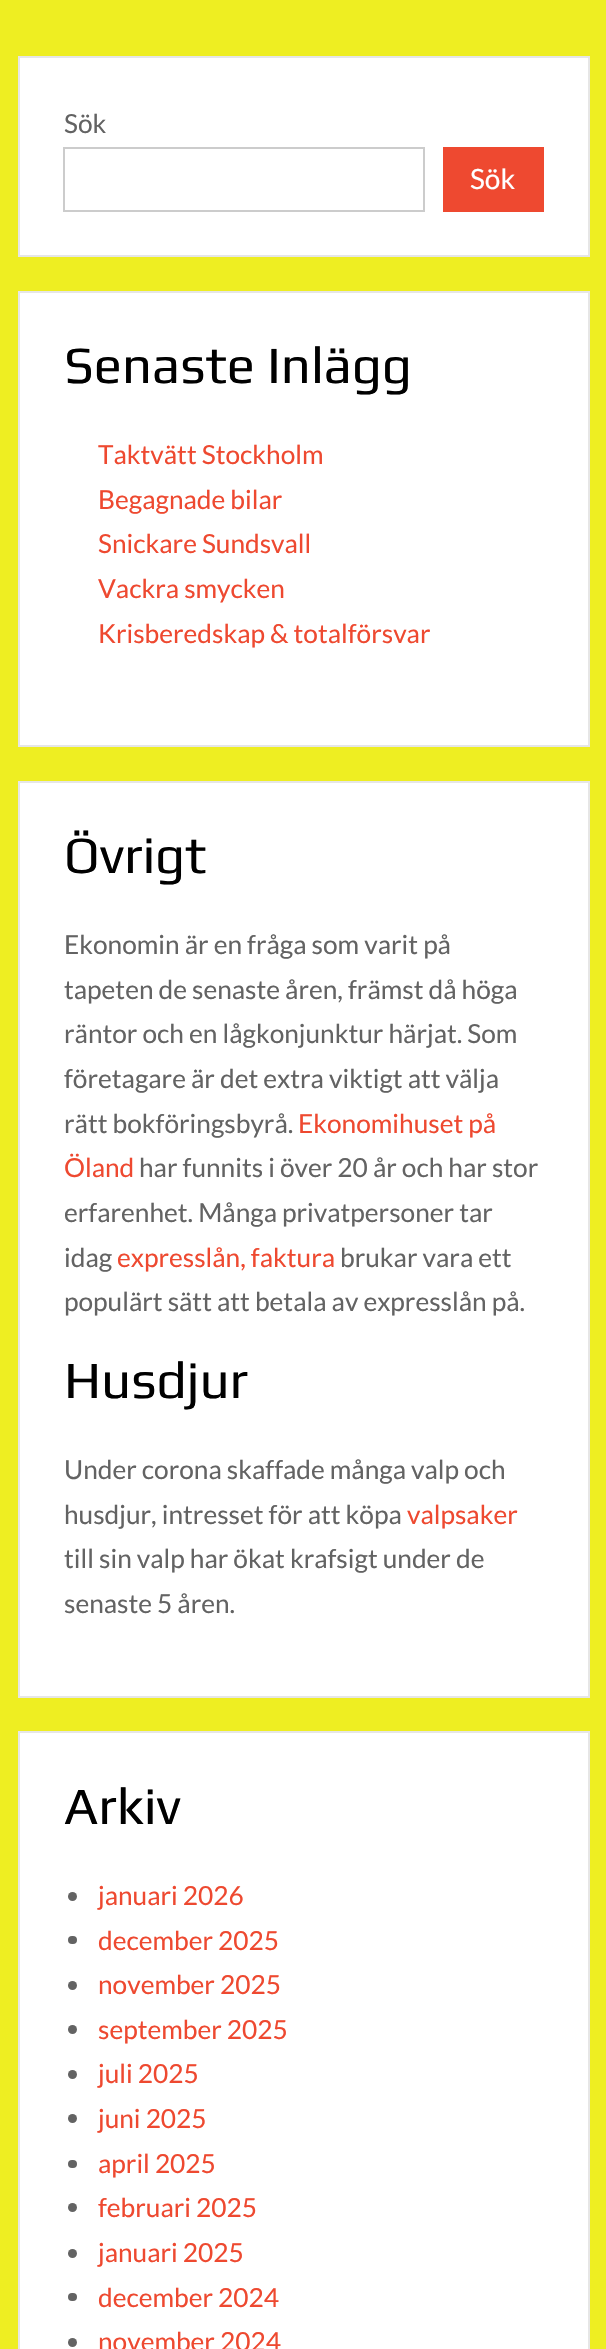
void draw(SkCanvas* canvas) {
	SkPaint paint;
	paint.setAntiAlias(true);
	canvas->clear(0xffeeee22);
	paint.setColor(0xffffffff);
	canvas->drawRect(SkRect::MakeXYWH(19, 57, 570, 199), paint);
	paint.setStroke(true);
	paint.setStrokeWidth(2);
	paint.setColor(0xffe6e6e6);
	canvas->drawRect(SkRect::MakeXYWH(19, 57, 570, 199), paint);
	SkFont f1(fontMgr->matchFamilyStyle("Lato", SkFontStyle::Normal()), 26.25);
	f1.setSubpixel(true);
	paint.setStroke(false);
	paint.setColor(0xff636363);
	canvas->drawString("Sök", 64, 133, f1, paint);
	paint.setStroke(true);
	paint.setColor(0xffcccccc);
	canvas->drawRect(SkRect::MakeXYWH(64, 148, 360, 63), paint);
	paint.setStroke(false);
	paint.setColor(0xffee4930);
	canvas->drawRect(SkRect::MakeXYWH(443, 147, 101, 65), paint);
	SkFont f2(fontMgr->matchFamilyStyle("Lato", SkFontStyle::Normal()), 28);
	f2.setSubpixel(true);
	paint.setColor(0xffffffff);
	canvas->drawString("Sök", 470, 189, f2, paint);
	canvas->drawRect(SkRect::MakeXYWH(19, 292, 570, 454), paint);
	paint.setStroke(true);
	paint.setColor(0xffe6e6e6);
	canvas->drawRect(SkRect::MakeXYWH(19, 292, 570, 454), paint);
	SkFont f3(fontMgr->matchFamilyStyle("Play", SkFontStyle::Normal()), 52.5);
	f3.setSubpixel(true);
	paint.setStroke(false);
	paint.setColor(0xff000000);
	canvas->drawString("Senaste Inlägg", 64, 383, f3, paint);
	paint.setColor(0xffee4930);
	canvas->drawString("Taktvätt Stockholm", 98, 464, f1, paint);
	canvas->drawString("Begagnade bilar", 98, 509, f1, paint);
	canvas->drawString("Snickare Sundsvall", 98, 553, f1, paint);
	canvas->drawString("Vackra smycken", 98, 598, f1, paint);
	canvas->drawString("Krisberedskap & totalförsvar", 98, 643, f1, paint);
	paint.setColor(0xffffffff);
	canvas->drawRect(SkRect::MakeXYWH(19, 782, 570, 915), paint);
	paint.setStroke(true);
	paint.setColor(0xffe6e6e6);
	canvas->drawRect(SkRect::MakeXYWH(19, 782, 570, 915), paint);
	paint.setStroke(false);
	paint.setColor(0xff000000);
	canvas->drawString("Övrigt", 64, 873, f3, paint);
	paint.setColor(0xff636363);
	canvas->drawString("Ekonomin är en fråga som varit på", 64, 954, f1, paint);
	canvas->drawString("tapeten de senaste åren, främst då höga", 64, 999, f1, paint);
	canvas->drawString("räntor och en lågkonjunktur härjat. Som", 64, 1043, f1, paint);
	canvas->drawString("företagare är det extra viktigt att välja", 64, 1088, f1, paint);
	canvas->drawString("rätt bokföringsbyrå.", 64, 1133, f1, paint);
	paint.setColor(0xffee4930);
	canvas->drawString("Ekonomihuset på", 298, 1133, f1, paint);
	canvas->drawString("Öland", 64, 1177, f1, paint);
	paint.setColor(0xff636363);
	canvas->drawString("har funnits i över 20 år och har stor", 139, 1177, f1, paint);
	canvas->drawString("erfarenhet. Många privatpersoner tar", 64, 1222, f1, paint);
	canvas->drawString("idag", 64, 1267, f1, paint);
	paint.setColor(0xffee4930);
	canvas->drawString("expresslån, faktura", 117, 1267, f1, paint);
	paint.setColor(0xff636363);
	canvas->drawString("brukar vara ett", 340, 1267, f1, paint);
	canvas->drawString("populärt sätt att betala av expresslån på.", 64, 1311, f1, paint);
	paint.setColor(0xff000000);
	canvas->drawString("Husdjur", 64, 1398, f3, paint);
	paint.setColor(0xff636363);
	canvas->drawString("Under corona skaffade många valp och", 64, 1479, f1, paint);
	canvas->drawString("husdjur, intresset för att köpa", 64, 1524, f1, paint);
	paint.setColor(0xffee4930);
	canvas->drawString("valpsaker", 407, 1524, f1, paint);
	paint.setColor(0xff636363);
	canvas->drawString("till sin valp har ökat krafsigt under de", 64, 1568, f1, paint);
	canvas->drawString("senaste 5 åren.", 64, 1613, f1, paint);
	paint.setColor(0xffffffff);
	canvas->drawRect(SkRect::MakeXYWH(19, 1732, 570, 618), paint);
	paint.setStroke(true);
	paint.setColor(0xffe6e6e6);
	canvas->drawRect(SkRect::MakeXYWH(19, 1732, 570, 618), paint);
	paint.setStroke(false);
	paint.setColor(0xff000000);
	canvas->drawString("Arkiv", 64, 1824, f3, paint);
	paint.setColor(0xff636363);
	canvas->drawCircle(72.5, 1896.5, 4.5, paint);
	paint.setColor(0xffee4930);
	canvas->drawString("januari 2026", 98, 1905, f1, paint);
	paint.setColor(0xff636363);
	canvas->drawRoundRect(SkRect::MakeXYWH(68, 1936, 9, 8), 4, 4, paint);
	paint.setColor(0xffee4930);
	canvas->drawString("december 2025", 98, 1950, f1, paint);
	paint.setColor(0xff636363);
	canvas->drawCircle(72.5, 1985.5, 4.5, paint);
	paint.setColor(0xffee4930);
	canvas->drawString("november 2025", 98, 1994, f1, paint);
	paint.setColor(0xff636363);
	canvas->drawCircle(72.5, 2029.5, 4.5, paint);
	paint.setColor(0xffee4930);
	canvas->drawString("september 2025", 98, 2039, f1, paint);
	paint.setColor(0xff636363);
	canvas->drawCircle(72.5, 2074.5, 4.5, paint);
	paint.setColor(0xffee4930);
	canvas->drawString("juli 2025", 98, 2083, f1, paint);
	paint.setColor(0xff636363);
	canvas->drawCircle(72.5, 2118.5, 4.5, paint);
	paint.setColor(0xffee4930);
	canvas->drawString("juni 2025", 98, 2128, f1, paint);
	paint.setColor(0xff636363);
	canvas->drawRoundRect(SkRect::MakeXYWH(68, 2160, 9, 8), 4, 4, paint);
	paint.setColor(0xffee4930);
	canvas->drawString("april 2025", 98, 2173, f1, paint);
	paint.setColor(0xff636363);
	canvas->drawCircle(72.5, 2207.5, 4.5, paint);
	paint.setColor(0xffee4930);
	canvas->drawString("februari 2025", 98, 2217, f1, paint);
	paint.setColor(0xff636363);
	canvas->drawCircle(72.5, 2253.5, 4.5, paint);
	paint.setColor(0xffee4930);
	canvas->drawString("januari 2025", 98, 2262, f1, paint);
	paint.setColor(0xff636363);
	canvas->drawRoundRect(SkRect::MakeXYWH(68, 2293, 9, 8), 4, 4, paint);
	paint.setColor(0xffee4930);
	canvas->drawString("december 2024", 98, 2307, f1, paint);
	paint.setColor(0xff636363);
	canvas->drawCircle(72.5, 2342.5, 4.5, paint);
	paint.setColor(0xffee4930);
	canvas->drawString("november 2024", 98, 2351, f1, paint);
}
